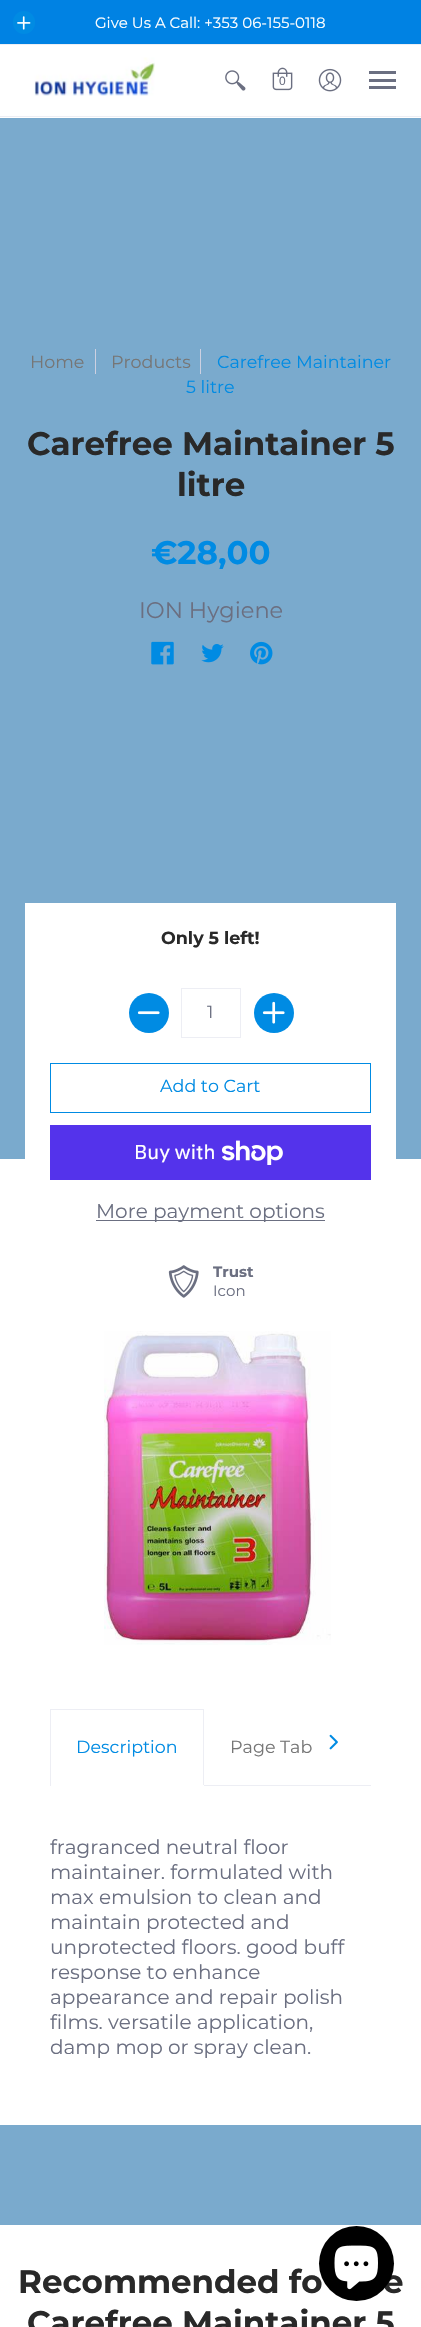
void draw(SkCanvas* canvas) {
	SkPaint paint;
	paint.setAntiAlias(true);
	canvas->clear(0xffffffff);
	paint.setColor(0xff0082e3);
	canvas->drawRect(SkRect::MakeXYWH(0, 0, 421, 44), paint);
	paint.setColor(0xffedeef4);
	canvas->drawRect(SkRect::MakeXYWH(0, 44, 421, 1), paint);
	paint.setColor(0xff008be3);
	canvas->drawRoundRect(SkRect::MakeXYWH(13, 11, 22, 23), 11, 11, paint);
	canvas->drawImageRect(SkImages::DeferredFromEncodedData(SkData::MakeFromFileName("img1.png")), SkRect::MakeXYWH(17, 16, 14, 14), SkSamplingOptions());
	SkFont f1(fontMgr->matchFamilyStyle("Montserrat", SkFontStyle::Normal()), 15);
	f1.setSubpixel(true);
	paint.setColor(0xffffffff);
	canvas->drawString("Give Us A Call: +353 06-155-0118", 95, 28, f1, paint);
	paint.setColor(0xffedeef4);
	canvas->drawRect(SkRect::MakeXYWH(0, 116, 421, 1), paint);
	canvas->drawImageRect(SkImages::DeferredFromEncodedData(SkData::MakeFromFileName("img2.png")), SkRect::MakeXYWH(34, 57, 121, 39), SkSamplingOptions());
	canvas->drawImageRect(SkImages::DeferredFromEncodedData(SkData::MakeFromFileName("img3.png")), SkRect::MakeXYWH(225, 70, 21, 21), SkSamplingOptions());
	canvas->drawImageRect(SkImages::DeferredFromEncodedData(SkData::MakeFromFileName("img4.png")), SkRect::MakeXYWH(272, 67, 21, 24), SkSamplingOptions());
	SkFont f2(fontMgr->matchFamilyStyle("Liberation Sans", SkFontStyle::Normal()), 12);
	f2.setSubpixel(true);
	paint.setColor(0xff6b6f81);
	canvas->drawString("0", 279, 85, f2, paint);
	canvas->drawImageRect(SkImages::DeferredFromEncodedData(SkData::MakeFromFileName("img5.png")), SkRect::MakeXYWH(318, 68, 24, 24), SkSamplingOptions());
	canvas->drawRect(SkRect::MakeXYWH(369, 71, 27, 3), paint);
	canvas->drawRect(SkRect::MakeXYWH(369, 86, 27, 3), paint);
	canvas->drawRect(SkRect::MakeXYWH(369, 79, 27, 3), paint);
	paint.setColor(0xff7aaacd);
	canvas->drawRect(SkRect::MakeXYWH(0, 118, 421, 1041), paint);
	SkFont f3(fontMgr->matchFamilyStyle("Montserrat", SkFontStyle::Normal()), 17.5);
	f3.setSubpixel(true);
	paint.setColor(0xff767676);
	canvas->drawString("Home", 30, 368, f3, paint);
	paint.setColor(0xffcdd0e1);
	canvas->drawRect(SkRect::MakeXYWH(95, 349, 1, 25), paint);
	paint.setColor(0xff767676);
	canvas->drawString("Products", 111, 368, f3, paint);
	paint.setColor(0xffcdd0e1);
	canvas->drawRect(SkRect::MakeXYWH(200, 349, 1, 25), paint);
	paint.setColor(0xff008be3);
	canvas->drawString("Carefree Maintainer", 217, 368, f3, paint);
	canvas->drawString("5 litre", 186, 393, f3, paint);
	SkFont f4(fontMgr->matchFamilyStyle("Montserrat", SkFontStyle::Bold()), 32.5);
	f4.setSubpixel(true);
	paint.setColor(0xff292929);
	canvas->drawString("Carefree Maintainer 5", 27, 455, f4, paint);
	canvas->drawString("litre", 177, 496, f4, paint);
	paint.setColor(0xff008be3);
	canvas->drawString("€28,00", 151, 564, f4, paint);
	SkFont f5(fontMgr->matchFamilyStyle("Montserrat", SkFontStyle::Normal()), 22.5);
	f5.setSubpixel(true);
	paint.setColor(0xff6b6f81);
	canvas->drawString("ION Hygiene", 139, 618, f5, paint);
	canvas->drawImageRect(SkImages::DeferredFromEncodedData(SkData::MakeFromFileName("img6.png")), SkRect::MakeXYWH(151, 641, 23, 24), SkSamplingOptions());
	canvas->drawImageRect(SkImages::DeferredFromEncodedData(SkData::MakeFromFileName("img7.png")), SkRect::MakeXYWH(201, 644, 23, 19), SkSamplingOptions());
	canvas->drawImageRect(SkImages::DeferredFromEncodedData(SkData::MakeFromFileName("img8.png")), SkRect::MakeXYWH(250, 641, 23, 24), SkSamplingOptions());
	paint.setColor(0xffffffff);
	canvas->drawRect(SkRect::MakeXYWH(25, 903, 371, 256), paint);
	SkFont f6(fontMgr->matchFamilyStyle("Montserrat", SkFontStyle::Bold()), 17.5);
	f6.setSubpixel(true);
	paint.setColor(0xff292929);
	canvas->drawString("Only 5 left!", 161, 944, f6, paint);
	paint.setColor(0xff008be3);
	canvas->drawCircle(149, 1013, 20, paint);
	canvas->drawImageRect(SkImages::DeferredFromEncodedData(SkData::MakeFromFileName("img9.png")), SkRect::MakeXYWH(137, 1011, 23, 4), SkSamplingOptions());
	paint.setStroke(true);
	paint.setStrokeWidth(1);
	paint.setColor(0xffedeef4);
	canvas->drawRect(SkRect::MakeXYWH(181.5, 988.5, 59, 49), paint);
	paint.setStroke(false);
	paint.setColor(0xff6b6f81);
	canvas->drawString("1", 207, 1018, f3, paint);
	paint.setColor(0xff008be3);
	canvas->drawCircle(274, 1013, 20, paint);
	canvas->drawImageRect(SkImages::DeferredFromEncodedData(SkData::MakeFromFileName("img10.png")), SkRect::MakeXYWH(262, 1001, 23, 23), SkSamplingOptions());
	paint.setStroke(true);
	canvas->drawRect(SkRect::MakeXYWH(50.5, 1063.5, 320, 49), paint);
	paint.setStroke(false);
	canvas->drawString("Add to Cart", 160, 1092, f3, paint);
	paint.setColor(0xff5433eb);
	canvas->drawRect(SkRect::MakeXYWH(50, 1125, 321, 55), paint);
	SkFont f7(fontMgr->matchFamilyStyle("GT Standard", SkFontStyle::Normal()), 20);
	f7.setSubpixel(true);
	paint.setColor(0xffffffff);
	canvas->drawString("Buy with", 134, 1159, f7, paint);
	canvas->drawImageRect(SkImages::DeferredFromEncodedData(SkData::MakeFromFileName("img11.png")), SkRect::MakeXYWH(221, 1140, 62, 25), SkSamplingOptions());
	paint.setColor(0xff6b6f81);
	canvas->drawRect(SkRect::MakeXYWH(96, 1220, 229, 1), paint);
	SkFont f8(fontMgr->matchFamilyStyle("Montserrat", SkFontStyle::Normal()), 20);
	f8.setSubpixel(true);
	canvas->drawString("More payment options", 96, 1218, f8, paint);
	canvas->drawImageRect(SkImages::DeferredFromEncodedData(SkData::MakeFromFileName("img12.png")), SkRect::MakeXYWH(168, 1265, 31, 33), SkSamplingOptions());
	SkFont f9(fontMgr->matchFamilyStyle("Montserrat", SkFontStyle::Bold()), 15);
	f9.setSubpixel(true);
	canvas->drawString("Trust", 213, 1277, f9, paint);
	canvas->drawString("Icon", 213, 1296, f1, paint);
	canvas->drawImageRect(SkImages::DeferredFromEncodedData(SkData::MakeFromFileName("img13.png")), SkRect::MakeXYWH(104, 1331, 227, 314), SkSamplingOptions());
	paint.setColor(0xffedeef4);
	canvas->drawRect(SkRect::MakeXYWH(50, 1709, 154, 1), paint);
	canvas->drawRect(SkRect::MakeXYWH(203, 1709, 1, 77), paint);
	paint.setColor(0xffffffff);
	canvas->drawRect(SkRect::MakeXYWH(203, 1785, 1, 1), paint);
	paint.setColor(0xffedeef4);
	canvas->drawRect(SkRect::MakeXYWH(50, 1709, 1, 77), paint);
	paint.setColor(0xff008be3);
	canvas->drawString("Description", 76, 1753, f3, paint);
	paint.setColor(0xff767676);
	canvas->drawString("Page Tab", 230, 1753, f3, paint);
	canvas->drawImageRect(SkImages::DeferredFromEncodedData(SkData::MakeFromFileName("img14.png")), SkRect::MakeXYWH(329, 1734, 9, 16), SkSamplingOptions());
	paint.setColor(0xffedeef4);
	canvas->drawRect(SkRect::MakeXYWH(204, 1785, 167, 1), paint);
	paint.setColor(0xff6b6f81);
	canvas->drawString("fragranced neutral floor", 50, 1854, f8, paint);
	canvas->drawString("maintainer. formulated with", 50, 1879, f8, paint);
	canvas->drawString("max emulsion to clean and", 50, 1904, f8, paint);
	canvas->drawString("maintain protected and", 50, 1929, f8, paint);
	canvas->drawString("unprotected floors. good buff", 50, 1954, f8, paint);
	canvas->drawString("response to enhance", 50, 1979, f8, paint);
	canvas->drawString("appearance and repair polish", 50, 2004, f8, paint);
	canvas->drawString("films. versatile application,", 50, 2029, f8, paint);
	canvas->drawString("damp mop or spray clean.", 50, 2054, f8, paint);
	paint.setColor(0xff7aaacd);
	canvas->drawRect(SkRect::MakeXYWH(0, 2125, 421, 100), paint);
	paint.setColor(0xff292929);
	canvas->drawString("Recommended fo", 18, 2293, f4, paint);
	canvas->drawString("e", 383, 2293, f4, paint);
	canvas->drawString("Carefree Maintainer 5", 27, 2334, f4, paint);
	paint.setColor(0xff000000);
	canvas->drawCircle(356.5, 2263.5, 37.5, paint);
	canvas->drawImageRect(SkImages::DeferredFromEncodedData(SkData::MakeFromFileName("img15.png")), SkRect::MakeXYWH(334, 2245, 44, 45), SkSamplingOptions());
}
